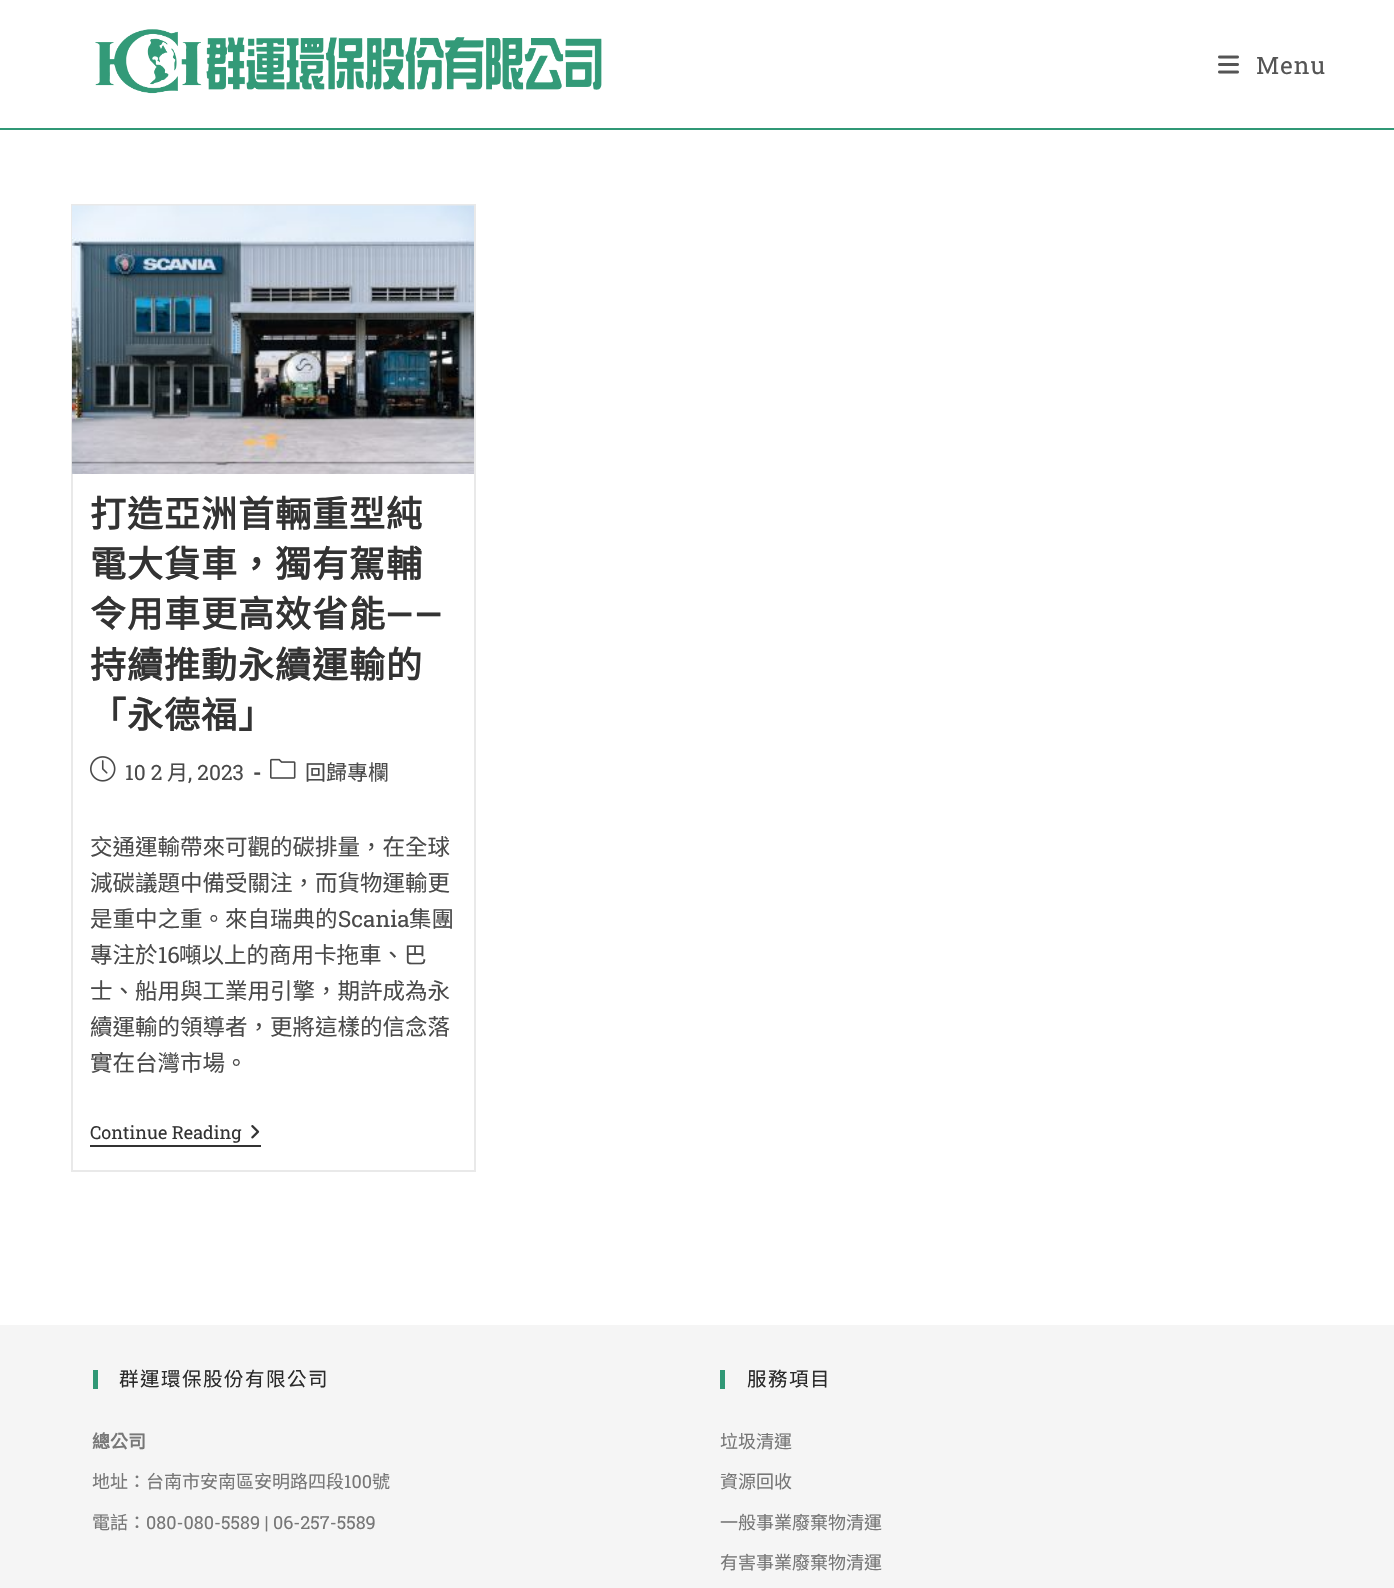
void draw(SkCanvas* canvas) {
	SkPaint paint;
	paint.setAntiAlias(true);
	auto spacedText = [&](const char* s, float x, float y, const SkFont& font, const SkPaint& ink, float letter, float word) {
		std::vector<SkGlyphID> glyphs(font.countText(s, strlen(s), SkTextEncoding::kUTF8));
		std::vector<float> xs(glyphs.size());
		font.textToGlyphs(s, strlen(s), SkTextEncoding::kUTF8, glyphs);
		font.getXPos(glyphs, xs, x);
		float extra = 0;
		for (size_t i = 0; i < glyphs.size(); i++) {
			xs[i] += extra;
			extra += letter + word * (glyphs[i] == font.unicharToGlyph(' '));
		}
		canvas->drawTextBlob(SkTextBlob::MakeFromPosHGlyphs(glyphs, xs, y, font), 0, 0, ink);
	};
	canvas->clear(0xffffffff);
	paint.setColor(0xff309876);
	canvas->drawRect(SkRect::MakeXYWH(0, 128, 1394, 2), paint);
	canvas->drawImageRect(SkImages::DeferredFromEncodedData(SkData::MakeFromFileName("img1.png")), SkRect::MakeXYWH(95, 29, 507, 65), SkSamplingOptions());
	canvas->drawImageRect(SkImages::DeferredFromEncodedData(SkData::MakeFromFileName("img2.png")), SkRect::MakeXYWH(1218, 55, 21, 19), SkSamplingOptions());
	SkFont f1(fontMgr->matchFamilyStyle("Roboto Slab", SkFontStyle::Normal()), 24);
	f1.setSubpixel(true);
	paint.setColor(0xff555555);
	spacedText("Menu", 1256, 74, f1, paint, 1, 0);
	paint.setStroke(true);
	paint.setStrokeWidth(2);
	paint.setColor(0xffe9e9e9);
	canvas->drawRect(SkRect::MakeXYWH(72, 205, 403, 966), paint);
	canvas->drawImageRect(SkImages::DeferredFromEncodedData(SkData::MakeFromFileName("img3.png")), SkRect::MakeXYWH(72, 205, 402, 269), SkSamplingOptions());
	SkFont f2(fontMgr->matchFamilyStyle("Noto Sans CJK TC", SkFontStyle::Bold()), 36);
	f2.setSubpixel(true);
	paint.setStroke(false);
	paint.setColor(0xff333333);
	spacedText("打造亞洲首輛重型純", 90, 527, f2, paint, 1, 0);
	spacedText("電大貨車，獨有駕輔", 90, 577, f2, paint, 1, 0);
	spacedText("令用車更高效省能", 90, 627, f2, paint, 1, 0);
	SkFont f3(fontMgr->matchFamilyStyle("Roboto Slab", SkFontStyle(600, SkFontStyle::kNormal_Width, SkFontStyle::kUpright_Slant)), 36);
	f3.setSubpixel(true);
	spacedText("——", 385, 627, f3, paint, 1, 0);
	spacedText("持續推動永續運輸的", 90, 678, f2, paint, 1, 0);
	spacedText("「永德福」", 90, 728, f2, paint, 1, 0);
	canvas->drawImageRect(SkImages::DeferredFromEncodedData(SkData::MakeFromFileName("img4.png")), SkRect::MakeXYWH(90, 756, 26, 26), SkSamplingOptions());
	SkFont f4(fontMgr->matchFamilyStyle("Roboto Slab", SkFontStyle::Normal()), 21);
	f4.setSubpixel(true);
	paint.setColor(0xff4a4a4a);
	canvas->drawString("10 2", 125, 780, f4, paint);
	SkFont f5(fontMgr->matchFamilyStyle("Noto Sans CJK TC", SkFontStyle::Normal()), 21);
	f5.setSubpixel(true);
	canvas->drawString("月", 167, 780, f5, paint);
	canvas->drawString(", 2023", 188, 780, f4, paint);
	SkFont f6(fontMgr->matchFamilyStyle("Roboto Slab", SkFontStyle::Bold()), 21);
	f6.setSubpixel(true);
	canvas->drawString("-", 253, 780, f6, paint);
	canvas->drawImageRect(SkImages::DeferredFromEncodedData(SkData::MakeFromFileName("img5.png")), SkRect::MakeXYWH(270, 758, 26, 21), SkSamplingOptions());
	canvas->drawString("回歸專欄", 305, 780, f5, paint);
	SkFont f7(fontMgr->matchFamilyStyle("Noto Sans CJK TC", SkFontStyle::Normal()), 22.5);
	f7.setSubpixel(true);
	canvas->drawString("交通運輸帶來可觀的碳排量，在全球", 90, 855, f7, paint);
	canvas->drawString("減碳議題中備受關注，而貨物運輸更", 90, 891, f7, paint);
	canvas->drawString("是重中之重。來自瑞典的", 90, 927, f7, paint);
	SkFont f8(fontMgr->matchFamilyStyle("Roboto Slab", SkFontStyle::Normal()), 22.5);
	f8.setSubpixel(true);
	canvas->drawString("Scania", 338, 927, f8, paint);
	canvas->drawString("集團", 409, 927, f7, paint);
	canvas->drawString("專注於", 90, 963, f7, paint);
	canvas->drawString("16", 158, 963, f8, paint);
	canvas->drawString("噸以上的商用卡拖車、巴", 179, 963, f7, paint);
	canvas->drawString("士、船用與工業用引擎，期許成為永", 90, 999, f7, paint);
	canvas->drawString("續運輸的領導者，更將這樣的信念落", 90, 1035, f7, paint);
	canvas->drawString("實在台灣市場。", 90, 1071, f7, paint);
	paint.setColor(0xff333333);
	canvas->drawRect(SkRect::MakeXYWH(90, 1145, 171, 2), paint);
	SkFont f9(fontMgr->matchFamilyStyle("Roboto Slab", SkFontStyle::Normal()), 18);
	f9.setSubpixel(true);
	canvas->drawString("Continue Reading", 90, 1139, f9, paint);
	canvas->drawImageRect(SkImages::DeferredFromEncodedData(SkData::MakeFromFileName("img6.png")), SkRect::MakeXYWH(251, 1125, 9, 14), SkSamplingOptions());
	paint.setColor(0xfff5f5f5);
	canvas->drawRect(SkRect::MakeXYWH(0, 1325, 1394, 263), paint);
	paint.setColor(0xff309876);
	canvas->drawRect(SkRect::MakeXYWH(93, 1370, 5, 19), paint);
	SkFont f10(fontMgr->matchFamilyStyle("Noto Sans CJK TC", SkFontStyle::Normal()), 19.5);
	f10.setSubpixel(true);
	paint.setColor(0xff292929);
	spacedText("群運環保股份有限公司", 119, 1386, f10, paint, 1.5, 0);
	SkFont f11(fontMgr->matchFamilyStyle("Noto Sans CJK TC", SkFontStyle::Bold()), 18);
	f11.setSubpixel(true);
	paint.setColor(0xff777777);
	canvas->drawString("總公司", 92, 1448, f11, paint);
	SkFont f12(fontMgr->matchFamilyStyle("Noto Sans CJK TC", SkFontStyle::Normal()), 18);
	f12.setSubpixel(true);
	canvas->drawString("地址：台南市安南區安明路四段", 92, 1488, f12, paint);
	canvas->drawString("100", 344, 1488, f9, paint);
	canvas->drawString("號", 372, 1488, f12, paint);
	canvas->drawString("電話：", 92, 1529, f12, paint);
	canvas->drawString("080-080-5589 | 06-257-5589", 146, 1529, f9, paint);
	paint.setColor(0xff309876);
	canvas->drawRect(SkRect::MakeXYWH(720, 1370, 5, 19), paint);
	paint.setColor(0xff292929);
	spacedText("服務項目", 747, 1386, f10, paint, 1.5, 0);
	paint.setColor(0xff777777);
	canvas->drawString("垃圾清運", 720, 1448, f12, paint);
	canvas->drawString("資源回收", 720, 1488, f12, paint);
	canvas->drawString("一般事業廢棄物清運", 720, 1529, f12, paint);
	canvas->drawString("有害事業廢棄物清運", 720, 1569, f12, paint);
}
